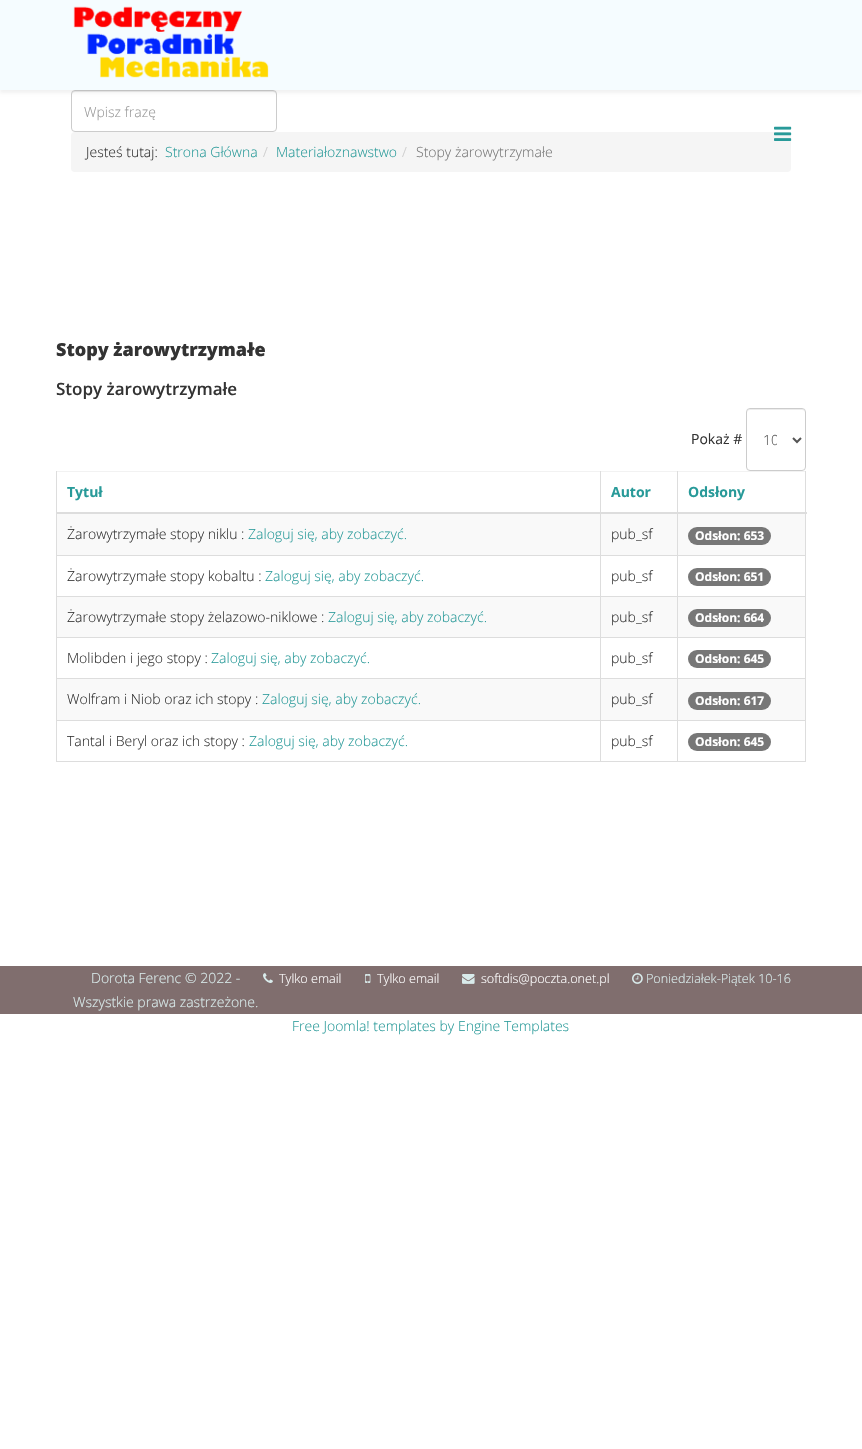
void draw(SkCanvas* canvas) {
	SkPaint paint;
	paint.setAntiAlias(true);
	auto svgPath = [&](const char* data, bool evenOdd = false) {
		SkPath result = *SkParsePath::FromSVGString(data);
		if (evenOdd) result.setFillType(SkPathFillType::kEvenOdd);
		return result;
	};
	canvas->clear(0xffffffff);
	paint.setColor(0xffececec);
	canvas->drawPath(svgPath("M75 92H273C275 92 276 93 276 95C276 93 275 91 273 91H75C73 91 72 93 72 95C72 93 73 92 75 92Z"), paint);
	paint.setStroke(true);
	paint.setStrokeWidth(1);
	paint.setColor(0xffcccccc);
	canvas->drawRoundRect(SkRect::MakeXYWH(71.5, 90.5, 205, 41), 3.5, 3.5, paint);
	paint.setStroke(false);
	paint.setColor(0x0d000000);
	paint.setMaskFilter(SkMaskFilter::MakeBlur(kNormal_SkBlurStyle, 1.5));
	canvas->drawRect(SkRect::MakeXYWH(0, 3, 862, 90), paint);
	paint.setMaskFilter(nullptr);
	paint.setColor(0xfff5fcff);
	canvas->drawRect(SkRect::MakeXYWH(0, 0, 862, 90), paint);
	canvas->drawImageRect(SkImages::DeferredFromEncodedData(SkData::MakeFromFileName("img1.png")), SkRect::MakeXYWH(73, 6, 196, 72), SkSamplingOptions());
	paint.setColor(0xfff5f5f5);
	canvas->drawRoundRect(SkRect::MakeXYWH(71, 132, 720, 40), 4, 4, paint);
	canvas->drawImageRect(SkImages::DeferredFromEncodedData(SkData::MakeFromFileName("img2.png")), SkRect::MakeXYWH(774, 126, 18, 15), SkSamplingOptions());
	SkFont f1(fontMgr->matchFamilyStyle("Open Sans", SkFontStyle(300, SkFontStyle::kNormal_Width, SkFontStyle::kUpright_Slant)), 14);
	f1.setSubpixel(true);
	paint.setColor(0xff999999);
	canvas->drawString("Wpisz frazę", 84, 117, f1, paint);
	paint.setColor(0xff333333);
	canvas->drawString("Jesteś tutaj:", 86, 157, f1, paint);
	paint.setColor(0xff289a99);
	canvas->drawString("Strona Główna", 165, 157, f1, paint);
	paint.setColor(0xffcccccc);
	canvas->drawString("/", 263, 157, f1, paint);
	paint.setColor(0xff289a99);
	canvas->drawString("Materiałoznawstwo", 276, 157, f1, paint);
	paint.setColor(0xffcccccc);
	canvas->drawString("/", 402, 157, f1, paint);
	paint.setColor(0xff777777);
	canvas->drawString("Stopy żarowytrzymałe", 416, 157, f1, paint);
	SkFont f2(fontMgr->matchFamilyStyle("Open Sans", SkFontStyle(800, SkFontStyle::kNormal_Width, SkFontStyle::kUpright_Slant)), 18);
	f2.setSubpixel(true);
	paint.setColor(0xff333333);
	canvas->drawString("Stopy żarowytrzymałe", 56, 356, f2, paint);
	SkFont f3(fontMgr->matchFamilyStyle("Open Sans", SkFontStyle(600, SkFontStyle::kNormal_Width, SkFontStyle::kUpright_Slant)), 17);
	f3.setSubpixel(true);
	canvas->drawString("Stopy żarowytrzymałe", 56, 395, f3, paint);
	SkFont f4(fontMgr->matchFamilyStyle("Open Sans", SkFontStyle::Normal()), 14);
	f4.setSubpixel(true);
	canvas->drawString("Pokaż #", 691, 444, f4, paint);
	paint.setColor(0xffececec);
	canvas->drawPath(svgPath("M750 410H802C804 410 805 411 805 413C805 407 798 409 793 409H759C754 409 747 407 747 413C747 411 748 410 750 410Z"), paint);
	paint.setStroke(true);
	paint.setColor(0xffcccccc);
	canvas->drawRoundRect(SkRect::MakeXYWH(746.5, 408.5, 59, 62), 3.5, 3.5, paint);
	paint.setStrokeWidth(2);
	paint.setColor(0xff555555);
	canvas->drawPath(svgPath("M793 438L797 442L801 438"), paint);
	canvas->save();
	canvas->clipRect(SkRect::MakeXYWH(763, 429, 14, 21));
	paint.setStroke(false);
	canvas->drawString("10", 763, 445, f1, paint);
	canvas->restore();
	paint.setColor(0xfff2f2f2);
	canvas->drawRect(SkRect::MakeXYWH(56, 471, 750, 1), paint);
	SkFont f5(fontMgr->matchFamilyStyle("Open Sans", SkFontStyle::Bold()), 14);
	f5.setSubpixel(true);
	paint.setColor(0xff289a99);
	canvas->drawString("Tytuł", 67, 497, f5, paint);
	canvas->drawString("Autor", 611, 497, f5, paint);
	paint.setColor(0xfff9f9f9);
	canvas->drawRect(SkRect::MakeXYWH(57, 514, 748, 41), paint);
	paint.setColor(0xffdddddd);
	canvas->drawRect(SkRect::MakeXYWH(677, 555, 129, 1), paint);
	canvas->drawRect(SkRect::MakeXYWH(677, 596, 129, 1), paint);
	paint.setColor(0xfff9f9f9);
	canvas->drawRect(SkRect::MakeXYWH(57, 597, 748, 40), paint);
	paint.setColor(0xffdddddd);
	canvas->drawRect(SkRect::MakeXYWH(677, 637, 129, 1), paint);
	canvas->drawRect(SkRect::MakeXYWH(677, 678, 129, 1), paint);
	paint.setColor(0xfff9f9f9);
	canvas->drawRect(SkRect::MakeXYWH(57, 679, 748, 41), paint);
	paint.setColor(0xffdddddd);
	canvas->drawRect(SkRect::MakeXYWH(677, 720, 129, 1), paint);
	canvas->drawRect(SkRect::MakeXYWH(805, 720, 1, 42), paint);
	canvas->drawRect(SkRect::MakeXYWH(677, 761, 129, 1), paint);
	canvas->drawRect(SkRect::MakeXYWH(677, 720, 1, 42), paint);
	canvas->drawRect(SkRect::MakeXYWH(600, 720, 78, 1), paint);
	canvas->drawRect(SkRect::MakeXYWH(677, 678, 1, 43), paint);
	canvas->drawRect(SkRect::MakeXYWH(600, 678, 78, 1), paint);
	canvas->drawRect(SkRect::MakeXYWH(677, 637, 1, 42), paint);
	canvas->drawRect(SkRect::MakeXYWH(600, 637, 78, 1), paint);
	canvas->drawRect(SkRect::MakeXYWH(677, 596, 1, 42), paint);
	canvas->drawRect(SkRect::MakeXYWH(600, 596, 78, 1), paint);
	canvas->drawRect(SkRect::MakeXYWH(677, 555, 1, 42), paint);
	canvas->drawRect(SkRect::MakeXYWH(600, 555, 78, 1), paint);
	canvas->drawRect(SkRect::MakeXYWH(600, 761, 78, 1), paint);
	canvas->drawRect(SkRect::MakeXYWH(600, 720, 1, 42), paint);
	canvas->drawRect(SkRect::MakeXYWH(56, 720, 545, 1), paint);
	canvas->drawRect(SkRect::MakeXYWH(600, 678, 1, 43), paint);
	canvas->drawRect(SkRect::MakeXYWH(56, 678, 545, 1), paint);
	canvas->drawRect(SkRect::MakeXYWH(600, 637, 1, 42), paint);
	canvas->drawRect(SkRect::MakeXYWH(56, 637, 545, 1), paint);
	canvas->drawRect(SkRect::MakeXYWH(600, 596, 1, 42), paint);
	canvas->drawRect(SkRect::MakeXYWH(56, 596, 545, 1), paint);
	canvas->drawRect(SkRect::MakeXYWH(600, 555, 1, 42), paint);
	canvas->drawRect(SkRect::MakeXYWH(56, 555, 545, 1), paint);
	canvas->drawRect(SkRect::MakeXYWH(600, 471, 1, 85), paint);
	canvas->drawRect(SkRect::MakeXYWH(677, 471, 1, 85), paint);
	canvas->drawRect(SkRect::MakeXYWH(56, 761, 545, 1), paint);
	canvas->drawRect(SkRect::MakeXYWH(56, 720, 1, 42), paint);
	canvas->drawRect(SkRect::MakeXYWH(56, 678, 1, 43), paint);
	canvas->drawRect(SkRect::MakeXYWH(56, 637, 1, 42), paint);
	canvas->drawRect(SkRect::MakeXYWH(56, 596, 1, 42), paint);
	canvas->drawRect(SkRect::MakeXYWH(56, 471, 1, 126), paint);
	canvas->drawRect(SkRect::MakeXYWH(805, 678, 1, 43), paint);
	canvas->drawRect(SkRect::MakeXYWH(805, 637, 1, 42), paint);
	canvas->drawRect(SkRect::MakeXYWH(805, 596, 1, 42), paint);
	canvas->drawRect(SkRect::MakeXYWH(805, 471, 1, 126), paint);
	canvas->drawRect(SkRect::MakeXYWH(56, 512, 751, 2), paint);
	paint.setColor(0xff289a99);
	canvas->drawString("Odsłony", 688, 497, f5, paint);
	paint.setColor(0xff333333);
	canvas->drawString("Żarowytrzymałe stopy niklu :", 67, 539, f1, paint);
	paint.setColor(0xff289a99);
	canvas->drawString("Zaloguj się, aby zobaczyć.", 248, 539, f1, paint);
	paint.setColor(0xff333333);
	canvas->drawString("pub_sf", 611, 539, f1, paint);
	paint.setColor(0xff777777);
	canvas->drawRoundRect(SkRect::MakeXYWH(688, 527, 83, 18), 9, 9, paint);
	SkFont f6(fontMgr->matchFamilyStyle("Open Sans", SkFontStyle::Bold()), 12);
	f6.setSubpixel(true);
	paint.setColor(0xffffffff);
	canvas->drawString("Odsłon: 653", 695, 540, f6, paint);
	paint.setColor(0xff333333);
	canvas->drawString("Żarowytrzymałe stopy kobaltu :", 67, 581, f1, paint);
	paint.setColor(0xff289a99);
	canvas->drawString("Zaloguj się, aby zobaczyć.", 265, 581, f1, paint);
	paint.setColor(0xff333333);
	canvas->drawString("pub_sf", 611, 581, f1, paint);
	paint.setColor(0xff777777);
	canvas->drawRoundRect(SkRect::MakeXYWH(688, 568, 83, 18), 9, 9, paint);
	paint.setColor(0xffffffff);
	canvas->drawString("Odsłon: 651", 695, 581, f6, paint);
	paint.setColor(0xff333333);
	canvas->drawString("Żarowytrzymałe stopy żelazowo-niklowe :", 67, 622, f1, paint);
	paint.setColor(0xff289a99);
	canvas->drawString("Zaloguj się, aby zobaczyć.", 328, 622, f1, paint);
	paint.setColor(0xff333333);
	canvas->drawString("pub_sf", 611, 622, f1, paint);
	paint.setColor(0xff777777);
	canvas->drawRoundRect(SkRect::MakeXYWH(688, 609, 83, 18), 9, 9, paint);
	paint.setColor(0xffffffff);
	canvas->drawString("Odsłon: 664", 695, 622, f6, paint);
	paint.setColor(0xff333333);
	canvas->drawString("Molibden i jego stopy :", 67, 663, f1, paint);
	paint.setColor(0xff289a99);
	canvas->drawString("Zaloguj się, aby zobaczyć.", 211, 663, f1, paint);
	paint.setColor(0xff333333);
	canvas->drawString("pub_sf", 611, 663, f1, paint);
	paint.setColor(0xff777777);
	canvas->drawRoundRect(SkRect::MakeXYWH(688, 650, 83, 18), 9, 9, paint);
	paint.setColor(0xffffffff);
	canvas->drawString("Odsłon: 645", 695, 663, f6, paint);
	paint.setColor(0xff333333);
	canvas->drawString("Wolfram i Niob oraz ich stopy :", 67, 704, f1, paint);
	paint.setColor(0xff289a99);
	canvas->drawString("Zaloguj się, aby zobaczyć.", 262, 704, f1, paint);
	paint.setColor(0xff333333);
	canvas->drawString("pub_sf", 611, 704, f1, paint);
	paint.setColor(0xff777777);
	canvas->drawRoundRect(SkRect::MakeXYWH(688, 692, 83, 18), 9, 9, paint);
	paint.setColor(0xffffffff);
	canvas->drawString("Odsłon: 617", 695, 705, f6, paint);
	paint.setColor(0xff333333);
	canvas->drawString("Tantal i Beryl oraz ich stopy :", 67, 746, f1, paint);
	paint.setColor(0xff289a99);
	canvas->drawString("Zaloguj się, aby zobaczyć.", 249, 746, f1, paint);
	paint.setColor(0xff333333);
	canvas->drawString("pub_sf", 611, 746, f1, paint);
	paint.setColor(0xff777777);
	canvas->drawRoundRect(SkRect::MakeXYWH(688, 733, 83, 18), 9, 9, paint);
	paint.setColor(0xffffffff);
	canvas->drawString("Odsłon: 645", 695, 746, f6, paint);
	paint.setColor(0xff806e6e);
	canvas->drawRect(SkRect::MakeXYWH(0, 966, 862, 48), paint);
	paint.setColor(0xffd9ebeb);
	canvas->drawString("Dorota Ferenc © 2022 -", 91, 983, f1, paint);
	canvas->drawString("Wszystkie prawa zastrzeżone.", 73, 1007, f1, paint);
	canvas->drawImageRect(SkImages::DeferredFromEncodedData(SkData::MakeFromFileName("img3.png")), SkRect::MakeXYWH(263, 973, 10, 10), SkSamplingOptions());
	SkFont f7(fontMgr->matchFamilyStyle("Open Sans", SkFontStyle(300, SkFontStyle::kNormal_Width, SkFontStyle::kUpright_Slant)), 12.6);
	f7.setSubpixel(true);
	paint.setColor(0xffffffff);
	canvas->drawString("Tylko email", 279, 983, f7, paint);
	canvas->drawImageRect(SkImages::DeferredFromEncodedData(SkData::MakeFromFileName("img4.png")), SkRect::MakeXYWH(365, 974, 6, 9), SkSamplingOptions());
	canvas->drawString("Tylko email", 377, 983, f7, paint);
	canvas->drawImageRect(SkImages::DeferredFromEncodedData(SkData::MakeFromFileName("img5.png")), SkRect::MakeXYWH(462, 974, 13, 10), SkSamplingOptions());
	canvas->drawString("softdis@poczta.onet.pl", 481, 983, f7, paint);
	canvas->drawImageRect(SkImages::DeferredFromEncodedData(SkData::MakeFromFileName("img6.png")), SkRect::MakeXYWH(632, 973, 11, 11), SkSamplingOptions());
	paint.setColor(0xffd9ebeb);
	canvas->drawString("Poniedziałek-Piątek 10-16", 646, 983, f7, paint);
	paint.setColor(0xff289a99);
	canvas->drawString("Free Joomla! templates by Engine Templates", 292, 1031, f1, paint);
}
